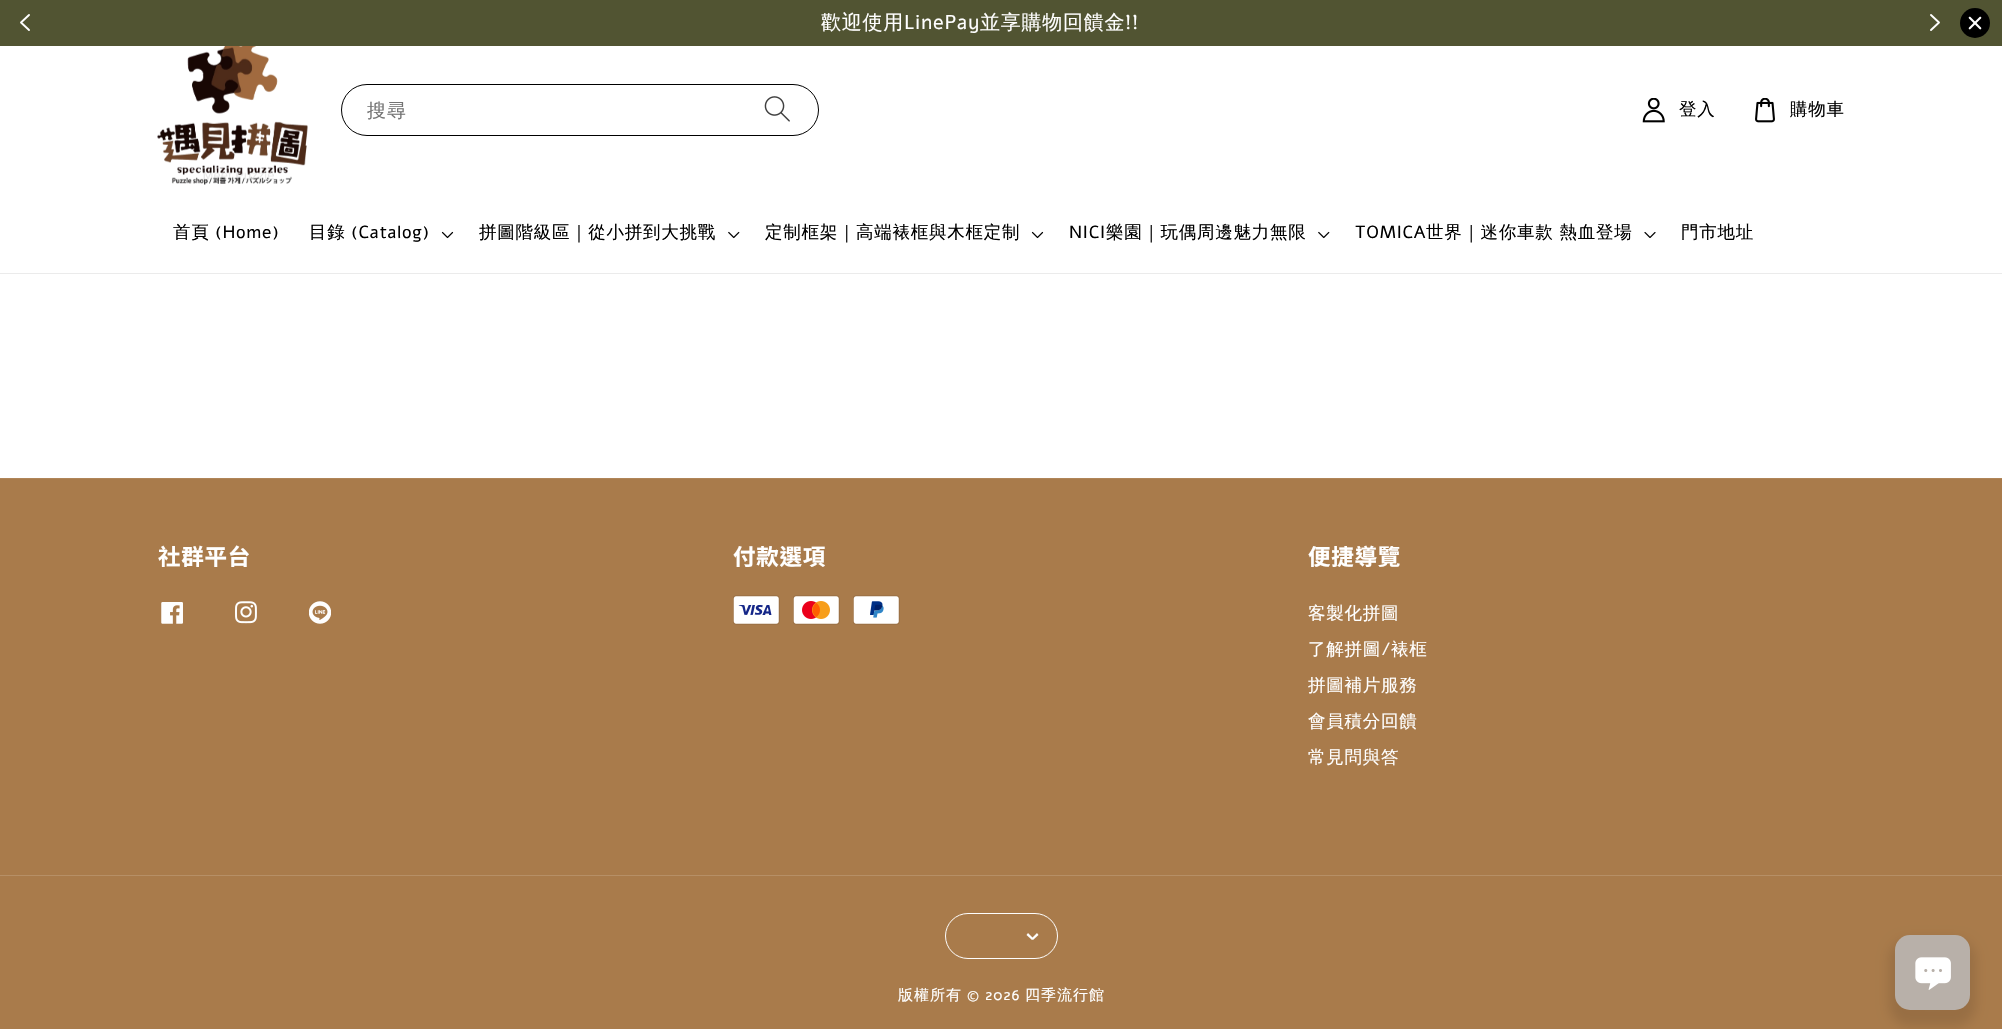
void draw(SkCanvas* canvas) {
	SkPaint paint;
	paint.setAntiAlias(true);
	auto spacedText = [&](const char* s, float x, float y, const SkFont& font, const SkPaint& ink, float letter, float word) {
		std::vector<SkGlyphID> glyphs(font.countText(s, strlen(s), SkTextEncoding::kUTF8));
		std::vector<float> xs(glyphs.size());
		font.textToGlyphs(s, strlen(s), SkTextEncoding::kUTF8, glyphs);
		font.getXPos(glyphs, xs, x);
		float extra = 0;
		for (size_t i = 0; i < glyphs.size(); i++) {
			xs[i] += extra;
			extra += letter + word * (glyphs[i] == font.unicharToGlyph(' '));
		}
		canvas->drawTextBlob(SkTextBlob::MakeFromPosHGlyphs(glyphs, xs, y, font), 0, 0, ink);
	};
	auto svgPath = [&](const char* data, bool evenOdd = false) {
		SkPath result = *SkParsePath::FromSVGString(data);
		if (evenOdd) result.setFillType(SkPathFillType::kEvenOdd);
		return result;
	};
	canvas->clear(0xffffffff);
	paint.setColor(0xff515432);
	canvas->drawRect(SkRect::MakeXYWH(0, 0, 2002, 46), paint);
	paint.setStroke(true);
	paint.setStrokeWidth(1.9);
	paint.setStrokeCap(SkPaint::kRound_Cap);
	paint.setStrokeJoin(SkPaint::kRound_Join);
	paint.setColor(0xffffffff);
	canvas->drawPath(svgPath("M29 15L21 22.5L29 30"), paint);
	SkFont f1(fontMgr->matchFamilyStyle("WenQuanYi Zen Hei", SkFontStyle(500, SkFontStyle::kNormal_Width, SkFontStyle::kUpright_Slant)), 20);
	f1.setSubpixel(true);
	paint.setStroke(false);
	spacedText("歡迎使用", 821, 29, f1, paint, 0.75, 0);
	SkFont f2(fontMgr->matchFamilyStyle("Alef", SkFontStyle::Normal()), 20);
	f2.setSubpixel(true);
	spacedText("LinePay", 904, 29, f2, paint, 0.75, 0);
	spacedText("並享購物回饋金", 980, 29, f1, paint, 0.75, 0);
	spacedText("!!", 1125, 29, f2, paint, 0.75, 0);
	paint.setStroke(true);
	canvas->drawPath(svgPath("M1931 15L1939 22.5L1931 30"), paint);
	paint.setStroke(false);
	paint.setColor(0xff000000);
	canvas->drawCircle(1975, 23, 15, paint);
	paint.setColor(0xffffffff);
	canvas->drawPath(svgPath("M1981 17C1981.5 17.5 1981.5 18 1981 18.5L1970.5 29C1970 29.5 1969.5 29.5 1969 29C1968.5 28.5 1968.5 28 1969 27.5L1979.5 17C1980 16.5 1980.5 16.5 1981 17Z"), paint);
	canvas->drawPath(svgPath("M1969 17C1969.5 16.5 1970 16.5 1970.5 17L1981 27.5C1981.5 28 1981.5 28.5 1981 29C1980.5 29.5 1980 29.5 1979.5 29L1969 18.5C1968.5 18 1968.5 17.5 1969 17Z"), paint);
	paint.setColor(0xffebebeb);
	canvas->drawRect(SkRect::MakeXYWH(0, 273, 2002, 1), paint);
	canvas->drawImageRect(SkImages::DeferredFromEncodedData(SkData::MakeFromFileName("img1.png")), SkRect::MakeXYWH(157, 46, 151, 139), SkSamplingOptions());
	paint.setStroke(true);
	paint.setStrokeWidth(1);
	paint.setStrokeCap(SkPaint::kButt_Cap);
	paint.setStrokeJoin(SkPaint::kMiter_Join);
	paint.setColor(0xff000000);
	canvas->drawRoundRect(SkRect::MakeXYWH(341.5, 84.5, 477, 51), 25.5, 25.5, paint);
	SkFont f3(fontMgr->matchFamilyStyle("WenQuanYi Zen Hei", SkFontStyle(500, SkFontStyle::kNormal_Width, SkFontStyle::kUpright_Slant)), 19);
	f3.setSubpixel(true);
	paint.setStroke(false);
	paint.setColor(0xff737373);
	spacedText("搜尋", 367, 117, f3, paint, 1, 0);
	canvas->drawImageRect(SkImages::DeferredFromEncodedData(SkData::MakeFromFileName("img2.png")), SkRect::MakeXYWH(764, 96, 26, 26), SkSamplingOptions());
	canvas->drawImageRect(SkImages::DeferredFromEncodedData(SkData::MakeFromFileName("img3.png")), SkRect::MakeXYWH(1642, 98, 23, 25), SkSamplingOptions());
	SkFont f4(fontMgr->matchFamilyStyle("WenQuanYi Zen Hei", SkFontStyle(500, SkFontStyle::kNormal_Width, SkFontStyle::kUpright_Slant)), 17.5);
	f4.setSubpixel(true);
	paint.setColor(0xff000000);
	spacedText("登入", 1679, 115, f4, paint, 0.75, 0);
	canvas->drawImageRect(SkImages::DeferredFromEncodedData(SkData::MakeFromFileName("img4.png")), SkRect::MakeXYWH(1755, 98, 20, 25), SkSamplingOptions());
	spacedText("購物車", 1790, 115, f4, paint, 0.75, 0);
	spacedText("首頁", 173, 238, f4, paint, 0.75, 0);
	SkFont f5(fontMgr->matchFamilyStyle("Alef", SkFontStyle::Normal()), 17.5);
	f5.setSubpixel(true);
	spacedText("(Home)", 215, 238, f5, paint, 0.75, 0);
	spacedText("目錄", 309, 238, f4, paint, 0.75, 0);
	spacedText("(Catalog)", 351, 238, f5, paint, 0.75, 0);
	canvas->drawImageRect(SkImages::DeferredFromEncodedData(SkData::MakeFromFileName("img5.png")), SkRect::MakeXYWH(441, 231, 13, 8), SkSamplingOptions());
	spacedText("拼圖階級區｜從小拼到大挑戰", 479, 238, f4, paint, 0.75, 0);
	canvas->drawImageRect(SkImages::DeferredFromEncodedData(SkData::MakeFromFileName("img6.png")), SkRect::MakeXYWH(728, 231, 12, 8), SkSamplingOptions());
	spacedText("定制框架｜高端裱框與木框定制", 765, 238, f4, paint, 0.75, 0);
	canvas->drawImageRect(SkImages::DeferredFromEncodedData(SkData::MakeFromFileName("img5.png")), SkRect::MakeXYWH(1031, 231, 13, 8), SkSamplingOptions());
	spacedText("NICI", 1069, 238, f5, paint, 0.75, 0);
	spacedText("樂園｜玩偶周邊魅力無限", 1106, 238, f4, paint, 0.75, 0);
	canvas->drawImageRect(SkImages::DeferredFromEncodedData(SkData::MakeFromFileName("img6.png")), SkRect::MakeXYWH(1318, 231, 12, 8), SkSamplingOptions());
	spacedText("TOMICA", 1355, 238, f5, paint, 0.75, 0);
	spacedText("世界｜迷你車款 熱血登場", 1426, 238, f4, paint, 0.75, 0);
	canvas->drawImageRect(SkImages::DeferredFromEncodedData(SkData::MakeFromFileName("img7.png")), SkRect::MakeXYWH(1644, 232, 12, 6), SkSamplingOptions());
	spacedText("門市地址", 1681, 238, f4, paint, 0.75, 0);
	paint.setColor(0xffa97b4b);
	canvas->drawRect(SkRect::MakeXYWH(0, 479, 2002, 550), paint);
	paint.setColor(0xffb08559);
	canvas->drawRect(SkRect::MakeXYWH(0, 478, 2002, 1), paint);
	SkFont f6(fontMgr->matchFamilyStyle("Noto Sans TC", SkFontStyle::Bold()), 22.5);
	f6.setSubpixel(true);
	paint.setColor(0xffffffff);
	spacedText("社群平台", 158, 565, f6, paint, 0.75, 0);
	canvas->drawImageRect(SkImages::DeferredFromEncodedData(SkData::MakeFromFileName("img8.png")), SkRect::MakeXYWH(161, 602, 22, 22), SkSamplingOptions());
	canvas->drawImageRect(SkImages::DeferredFromEncodedData(SkData::MakeFromFileName("img9.png")), SkRect::MakeXYWH(235, 601, 22, 23), SkSamplingOptions());
	canvas->drawImageRect(SkImages::DeferredFromEncodedData(SkData::MakeFromFileName("img10.png")), SkRect::MakeXYWH(309, 601, 22, 23), SkSamplingOptions());
	spacedText("付款選項", 733, 565, f6, paint, 0.75, 0);
	canvas->drawImageRect(SkImages::DeferredFromEncodedData(SkData::MakeFromFileName("img11.png")), SkRect::MakeXYWH(733, 595, 47, 30), SkSamplingOptions());
	canvas->drawImageRect(SkImages::DeferredFromEncodedData(SkData::MakeFromFileName("img12.png")), SkRect::MakeXYWH(793, 595, 47, 30), SkSamplingOptions());
	canvas->drawImageRect(SkImages::DeferredFromEncodedData(SkData::MakeFromFileName("img13.png")), SkRect::MakeXYWH(853, 595, 47, 30), SkSamplingOptions());
	spacedText("便捷導覽", 1308, 565, f6, paint, 0.75, 0);
	spacedText("客製化拼圖", 1308, 619, f4, paint, 0.75, 0);
	spacedText("了解拼圖", 1308, 655, f4, paint, 0.75, 0);
	spacedText("/", 1381, 655, f5, paint, 0.75, 0);
	spacedText("裱框", 1391, 655, f4, paint, 0.75, 0);
	spacedText("拼圖補片服務", 1308, 691, f4, paint, 0.75, 0);
	spacedText("會員積分回饋", 1308, 727, f4, paint, 0.75, 0);
	spacedText("常見問與答", 1308, 763, f4, paint, 0.75, 0);
	paint.setColor(0xffb68f66);
	canvas->drawRect(SkRect::MakeXYWH(0, 875, 2002, 1), paint);
	paint.setStroke(true);
	paint.setColor(0xfffefefe);
	canvas->drawRoundRect(SkRect::MakeXYWH(945.5, 913.5, 112, 45), 22.5, 22.5, paint);
	paint.setStroke(false);
	canvas->drawPath(svgPath("M1037 933L1038.5 935L1033 940L1031.5 938.5Z"), paint);
	canvas->drawPath(svgPath("M1026.5 935L1028 933L1033.5 938.5L1032 940Z"), paint);
	SkFont f7(fontMgr->matchFamilyStyle("WenQuanYi Zen Hei", SkFontStyle(500, SkFontStyle::kNormal_Width, SkFontStyle::kUpright_Slant)), 15);
	f7.setSubpixel(true);
	paint.setColor(0xffffffff);
	spacedText("版權所有", 898, 1000, f7, paint, 1, 0);
	SkFont f8(fontMgr->matchFamilyStyle("Alef", SkFontStyle::Normal()), 15);
	f8.setSubpixel(true);
	spacedText("© 2026", 967, 1000, f8, paint, 1, 0);
	spacedText("四季流行館", 1025, 1000, f7, paint, 1, 0);
	paint.setColor(0x1a000000);
	paint.setMaskFilter(SkMaskFilter::MakeBlur(kNormal_SkBlurStyle, 6));
	canvas->drawRoundRect(SkRect::MakeXYWH(1889, 939, 87, 87), 21, 21, paint);
	paint.setMaskFilter(nullptr);
	paint.setColor(0xffb8b0a9);
	canvas->drawRoundRect(SkRect::MakeXYWH(1895, 935, 75, 75), 15, 15, paint);
	canvas->drawImageRect(SkImages::DeferredFromEncodedData(SkData::MakeFromFileName("img14.png")), SkRect::MakeXYWH(1915, 957, 36, 33), SkSamplingOptions());
}
